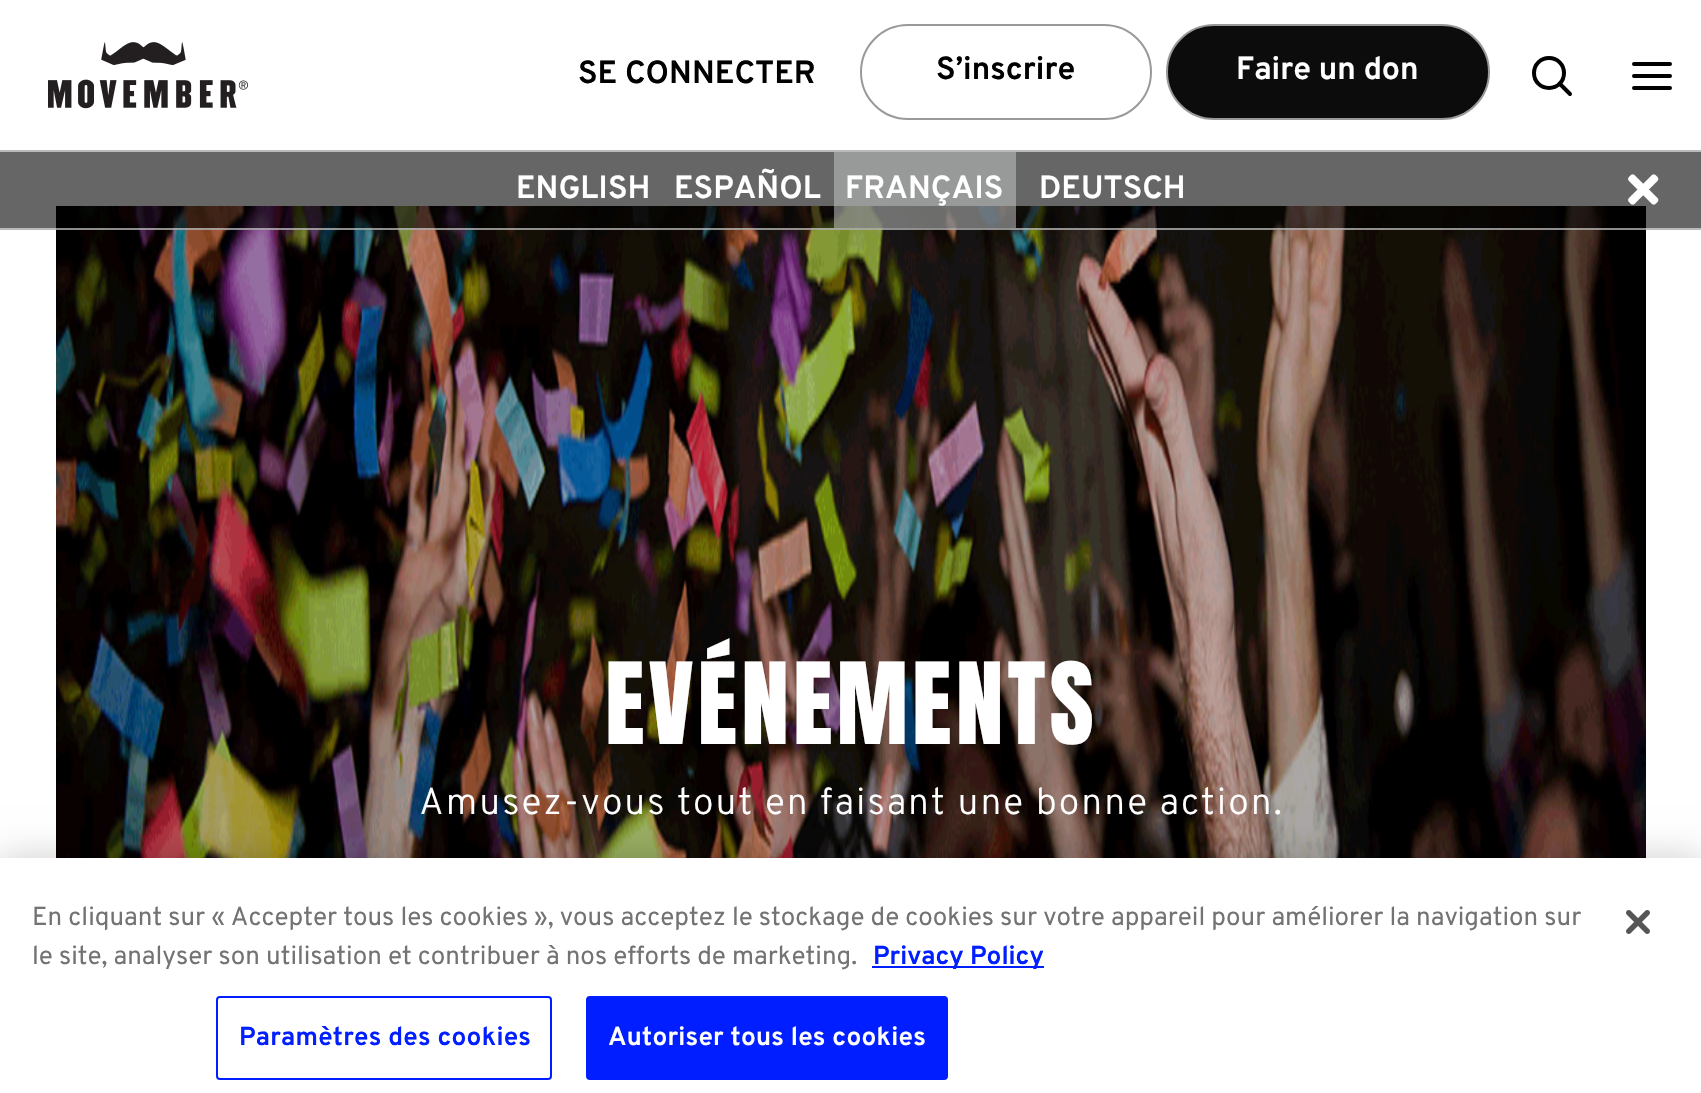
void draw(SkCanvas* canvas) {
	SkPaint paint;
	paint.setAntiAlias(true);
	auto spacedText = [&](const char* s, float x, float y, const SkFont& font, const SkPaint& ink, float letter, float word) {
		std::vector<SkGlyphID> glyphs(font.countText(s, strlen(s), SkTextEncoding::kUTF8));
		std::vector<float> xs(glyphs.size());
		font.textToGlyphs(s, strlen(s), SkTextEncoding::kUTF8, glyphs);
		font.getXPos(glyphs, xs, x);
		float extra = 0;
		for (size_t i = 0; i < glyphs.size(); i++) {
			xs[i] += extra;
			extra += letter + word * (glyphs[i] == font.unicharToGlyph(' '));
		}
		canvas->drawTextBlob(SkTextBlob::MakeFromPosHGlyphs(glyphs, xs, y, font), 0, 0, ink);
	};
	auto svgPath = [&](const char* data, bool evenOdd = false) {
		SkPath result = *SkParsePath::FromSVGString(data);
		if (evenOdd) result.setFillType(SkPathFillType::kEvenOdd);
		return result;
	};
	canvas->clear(0xffffffff);
	canvas->drawImageRect(SkImages::DeferredFromEncodedData(SkData::MakeFromFileName("img1.png")), SkRect::MakeXYWH(48, 42, 200, 67), SkSamplingOptions());
	SkFont f1(fontMgr->matchFamilyStyle("Overpass", SkFontStyle::Bold()), 32);
	f1.setSubpixel(true);
	paint.setColor(0xff000000);
	canvas->drawString("SE CONNECTER", 578, 83, f1, paint);
	paint.setStroke(true);
	paint.setStrokeWidth(2);
	paint.setColor(0xff999999);
	canvas->drawRoundRect(SkRect::MakeXYWH(861, 25, 290, 94), 47, 47, paint);
	paint.setStroke(false);
	paint.setColor(0xff000000);
	canvas->drawString("S’inscrire", 936, 79, f1, paint);
	paint.setColor(0xff0c0c0c);
	canvas->drawRoundRect(SkRect::MakeXYWH(1167, 25, 322, 94), 47, 47, paint);
	paint.setStroke(true);
	paint.setColor(0xff999999);
	canvas->drawRoundRect(SkRect::MakeXYWH(1167, 25, 322, 94), 47, 47, paint);
	paint.setStroke(false);
	paint.setColor(0xffffffff);
	canvas->drawString("Faire un don", 1236, 79, f1, paint);
	paint.setStroke(true);
	paint.setStrokeWidth(4);
	paint.setStrokeCap(SkPaint::kRound_Cap);
	paint.setStrokeJoin(SkPaint::kRound_Join);
	paint.setColor(0xff000000);
	canvas->drawPath(svgPath("M1549 88C1557.5 88 1564 81.5 1564 73C1564 64.5 1557.5 58 1549 58C1540.5 58 1534 64.5 1534 73C1534 81.5 1540.5 88 1549 88ZM1570 94L1559.5 83.5"), paint);
	canvas->drawPath(svgPath("M1634 76H1670M1634 64H1670M1634 88H1670"), paint);
	canvas->drawImageRect(SkImages::DeferredFromEncodedData(SkData::MakeFromFileName("img3.png")), SkRect::MakeXYWH(56, 206, 1590, 652), SkSamplingOptions());
	paint.setStroke(false);
	paint.setColor(0x99000000);
	canvas->drawRect(SkRect::MakeXYWH(0, 152, 1701, 78), paint);
	paint.setColor(0xffbababa);
	canvas->drawRect(SkRect::MakeXYWH(0, 150, 1701, 2), paint);
	paint.setColor(0x8cffffff);
	canvas->drawRect(SkRect::MakeXYWH(0, 228, 1701, 2), paint);
	paint.setColor(0xffffffff);
	canvas->drawString("ENGLISH", 516, 198, f1, paint);
	canvas->drawString("ESPAÑOL", 674, 198, f1, paint);
	paint.setColor(0x8cc1c2c3);
	canvas->drawRect(SkRect::MakeXYWH(834, 152, 182, 76), paint);
	paint.setColor(0xffffffff);
	canvas->drawString("FRANÇAIS", 845, 198, f1, paint);
	canvas->drawString("DEUTSCH", 1039, 198, f1, paint);
	canvas->drawImageRect(SkImages::DeferredFromEncodedData(SkData::MakeFromFileName("img2.png")), SkRect::MakeXYWH(1628, 174, 31, 31), SkSamplingOptions());
	SkFont f2(fontMgr->matchFamilyStyle("Anton", SkFontStyle::Normal()), 96);
	f2.setSubpixel(true);
	spacedText("EVÉNEMENTS", 605, 744, f2, paint, 4, 0);
	SkFont f3(fontMgr->matchFamilyStyle("Overpass", SkFontStyle(300, SkFontStyle::kNormal_Width, SkFontStyle::kUpright_Slant)), 37.4);
	f3.setSubpixel(true);
	spacedText("Amusez-vous tout en faisant une bonne action.", 419, 814, f3, paint, 2, 0);
	paint.setColor(0x33000000);
	paint.setMaskFilter(SkMaskFilter::MakeBlur(kNormal_SkBlurStyle, 18));
	canvas->drawRect(SkRect::MakeXYWH(0, 858, 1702, 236), paint);
	paint.setMaskFilter(nullptr);
	paint.setColor(0xffffffff);
	canvas->drawRect(SkRect::MakeXYWH(0, 858, 1701, 235), paint);
	SkFont f4(fontMgr->matchFamilyStyle("Overpass", SkFontStyle::Normal()), 26.02);
	f4.setSubpixel(true);
	paint.setColor(0xff737373);
	canvas->drawString("En cliquant sur « Accepter tous les cookies », vous acceptez le stockage de cookies sur votre appareil pour améliorer la navigation sur", 32, 925, f4, paint);
	canvas->drawString("le site, analyser son utilisation et contribuer à nos efforts de marketing.", 32, 964, f4, paint);
	paint.setColor(0xff001eff);
	canvas->drawRect(SkRect::MakeXYWH(872, 966, 172, 2), paint);
	SkFont f5(fontMgr->matchFamilyStyle("Overpass", SkFontStyle::Bold()), 26.02);
	f5.setSubpixel(true);
	canvas->drawString("Privacy Policy", 873, 964, f5, paint);
	paint.setStroke(true);
	paint.setStrokeWidth(2);
	paint.setStrokeCap(SkPaint::kButt_Cap);
	paint.setStrokeJoin(SkPaint::kMiter_Join);
	canvas->drawRoundRect(SkRect::MakeXYWH(217, 997, 334, 82), 3, 3, paint);
	paint.setStroke(false);
	spacedText("Paramètres des cookies", 239, 1045, f5, paint, 0.25, 0);
	canvas->drawRoundRect(SkRect::MakeXYWH(587, 997, 360, 82), 3, 3, paint);
	paint.setStroke(true);
	canvas->drawRoundRect(SkRect::MakeXYWH(587, 997, 360, 82), 3, 3, paint);
	paint.setStroke(false);
	paint.setColor(0xffffffff);
	spacedText("Autoriser tous les cookies", 608, 1045, f5, paint, 0.25, 0);
	canvas->drawImageRect(SkImages::DeferredFromEncodedData(SkData::MakeFromFileName("img4.png")), SkRect::MakeXYWH(1626, 910, 24, 24), SkSamplingOptions());
}
